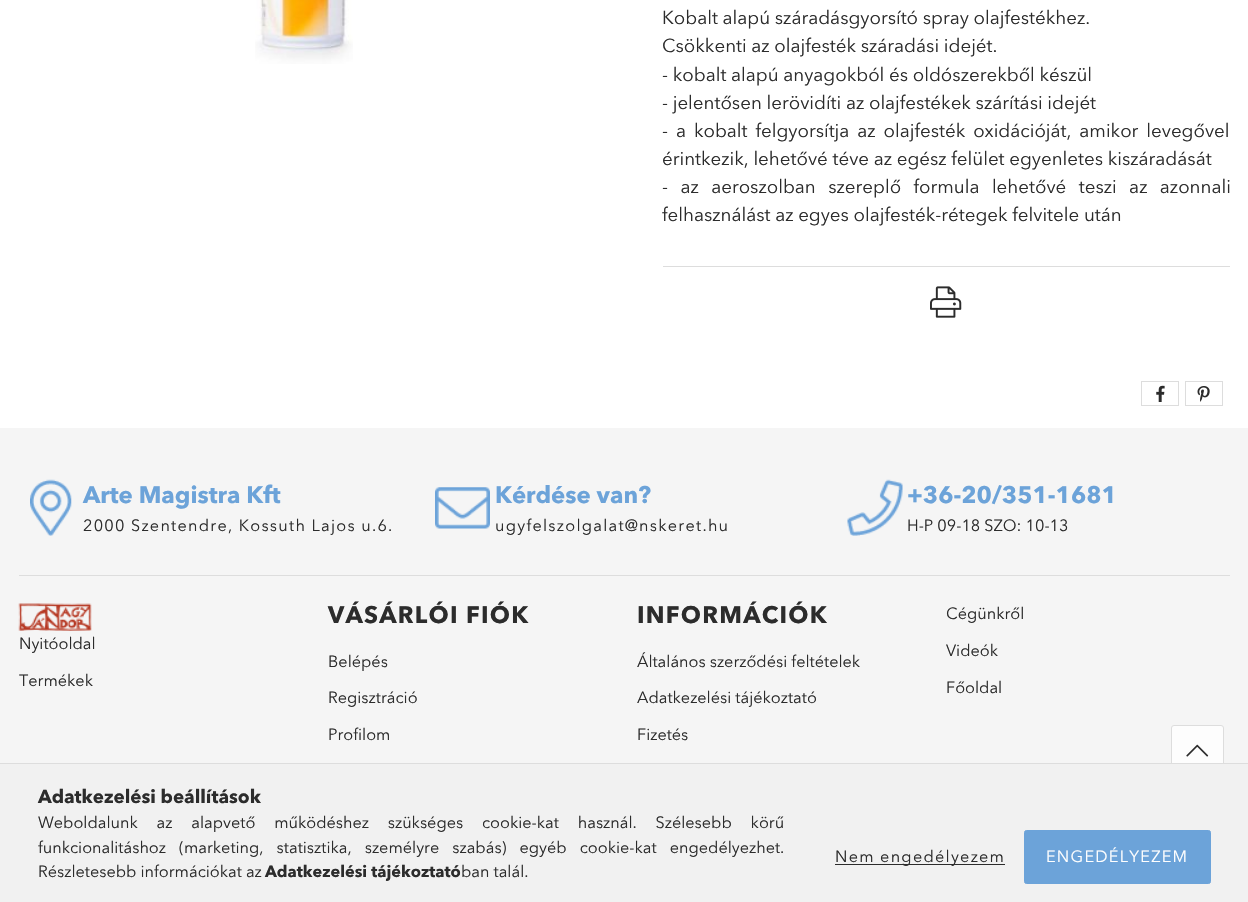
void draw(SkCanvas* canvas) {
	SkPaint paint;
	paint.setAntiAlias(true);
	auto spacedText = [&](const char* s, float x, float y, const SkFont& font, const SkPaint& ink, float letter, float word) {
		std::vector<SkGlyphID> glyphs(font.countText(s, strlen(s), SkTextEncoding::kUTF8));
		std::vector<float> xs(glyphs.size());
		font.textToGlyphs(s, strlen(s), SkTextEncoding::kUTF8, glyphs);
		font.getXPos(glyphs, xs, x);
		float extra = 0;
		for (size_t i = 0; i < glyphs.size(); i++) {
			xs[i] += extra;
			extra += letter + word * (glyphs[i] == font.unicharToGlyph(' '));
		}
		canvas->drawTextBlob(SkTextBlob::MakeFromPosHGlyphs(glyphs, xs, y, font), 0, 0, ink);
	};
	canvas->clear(0xffffffff);
	canvas->drawImageRect(SkImages::DeferredFromEncodedData(SkData::MakeFromFileName("img1.png")), SkRect::MakeXYWH(255, 0, 98, 64), SkSamplingOptions());
	SkFont f1(fontMgr->matchFamilyStyle("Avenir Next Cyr", SkFontStyle::Normal()), 18.75);
	f1.setSubpixel(true);
	paint.setColor(0xff2c2c2c);
	canvas->drawString("Kobalt alapú száradásgyorsító spray olajfestékhez.", 662, 24, f1, paint);
	canvas->drawString("Csökkenti az olajfesték száradási idejét.", 662, 52, f1, paint);
	canvas->drawString("- kobalt alapú anyagokból és oldószerekből készül", 662, 81, f1, paint);
	canvas->drawString("- jelentősen lerövidíti az olajfestékek szárítási idejét", 662, 109, f1, paint);
	spacedText("- a kobalt felgyorsítja az olajfesték oxidációját, amikor levegővel", 662, 137, f1, paint, 0, 3.25);
	canvas->drawString("érintkezik, lehetővé téve az egész felület egyenletes kiszáradását", 662, 165, f1, paint);
	spacedText("- az aeroszolban szereplő formula lehetővé teszi az azonnali", 662, 193, f1, paint, 0, 7.75);
	canvas->drawString("felhasználást az egyes olajfesték-rétegek felvitele után", 662, 221, f1, paint);
	paint.setColor(0xffdddddd);
	canvas->drawRect(SkRect::MakeXYWH(663, 266, 567, 1), paint);
	canvas->drawImageRect(SkImages::DeferredFromEncodedData(SkData::MakeFromFileName("img2.png")), SkRect::MakeXYWH(930, 286, 32, 32), SkSamplingOptions());
	paint.setStroke(true);
	paint.setStrokeWidth(1);
	canvas->drawRect(SkRect::MakeXYWH(1141.5, 381.5, 37, 24), paint);
	canvas->drawImageRect(SkImages::DeferredFromEncodedData(SkData::MakeFromFileName("img3.png")), SkRect::MakeXYWH(1156, 385, 9, 17), SkSamplingOptions());
	canvas->drawRect(SkRect::MakeXYWH(1185.5, 381.5, 37, 24), paint);
	canvas->drawImageRect(SkImages::DeferredFromEncodedData(SkData::MakeFromFileName("img4.png")), SkRect::MakeXYWH(1197, 386, 13, 16), SkSamplingOptions());
	paint.setStroke(false);
	paint.setColor(0xfff5f5f5);
	canvas->drawRect(SkRect::MakeXYWH(0, 428, 1248, 335), paint);
	canvas->drawImageRect(SkImages::DeferredFromEncodedData(SkData::MakeFromFileName("img5.png")), SkRect::MakeXYWH(30, 479, 42, 57), SkSamplingOptions());
	SkFont f2(fontMgr->matchFamilyStyle("Avenir Next Cyr", SkFontStyle::Bold()), 23.75);
	f2.setSubpixel(true);
	paint.setColor(0xff6ca3d9);
	canvas->drawString("Arte Magistra Kft", 83, 503, f2, paint);
	SkFont f3(fontMgr->matchFamilyStyle("Avenir Next Cyr", SkFontStyle::Normal()), 16.25);
	f3.setSubpixel(true);
	paint.setColor(0xff2c2c2c);
	spacedText("2000 Szentendre, Kossuth Lajos u.6.", 83, 531, f3, paint, 1.25, 0);
	canvas->drawImageRect(SkImages::DeferredFromEncodedData(SkData::MakeFromFileName("img6.png")), SkRect::MakeXYWH(435, 487, 55, 42), SkSamplingOptions());
	paint.setColor(0xff6ca3d9);
	canvas->drawString("Kérdése van?", 495, 503, f2, paint);
	paint.setColor(0xff2c2c2c);
	spacedText("ugyfelszolgalat@nskeret.hu", 495, 531, f3, paint, 1.25, 0);
	canvas->drawImageRect(SkImages::DeferredFromEncodedData(SkData::MakeFromFileName("img7.png")), SkRect::MakeXYWH(847, 479, 56, 57), SkSamplingOptions());
	paint.setColor(0xff6ca3d9);
	canvas->drawString("+36-20/351-1681", 907, 503, f2, paint);
	paint.setColor(0xff2c2c2c);
	canvas->drawString("H-P 09-18 SZO: 10-13", 907, 531, f3, paint);
	paint.setColor(0xffdddddd);
	canvas->drawRect(SkRect::MakeXYWH(19, 575, 1211, 1), paint);
	canvas->drawImageRect(SkImages::DeferredFromEncodedData(SkData::MakeFromFileName("img8.png")), SkRect::MakeXYWH(18, 603, 74, 28), SkSamplingOptions());
	paint.setColor(0xff2c2c2c);
	canvas->drawString("Nyitóoldal", 19, 649, f3, paint);
	canvas->drawString("Termékek", 19, 686, f3, paint);
	spacedText("VÁSÁRLÓI FIÓK", 328, 623, f2, paint, 1.25, 0);
	canvas->drawString("Belépés", 328, 667, f3, paint);
	canvas->drawString("Regisztráció", 328, 703, f3, paint);
	canvas->drawString("Profilom", 328, 740, f3, paint);
	spacedText("INFORMÁCIÓK", 637, 623, f2, paint, 1.25, 0);
	canvas->drawString("Általános szerződési feltételek", 637, 667, f3, paint);
	canvas->drawString("Adatkezelési tájékoztató", 637, 703, f3, paint);
	canvas->drawString("Fizetés", 637, 740, f3, paint);
	canvas->drawString("Cégünkről", 946, 619, f3, paint);
	canvas->drawString("Videók", 946, 656, f3, paint);
	canvas->drawString("Főoldal", 946, 693, f3, paint);
	paint.setColor(0xfffdfdfd);
	canvas->drawRoundRect(SkRect::MakeXYWH(1171.5, 725.5, 52, 52), 2.5, 2.5, paint);
	paint.setStroke(true);
	paint.setColor(0xffdddddd);
	canvas->drawRoundRect(SkRect::MakeXYWH(1171.5, 725.5, 52, 52), 2.5, 2.5, paint);
	canvas->drawImageRect(SkImages::DeferredFromEncodedData(SkData::MakeFromFileName("img9.png")), SkRect::MakeXYWH(1186, 744, 23, 13), SkSamplingOptions());
	paint.setStroke(false);
	paint.setColor(0xfff1f1f1);
	canvas->drawRect(SkRect::MakeXYWH(0, 764, 1248, 138), paint);
	paint.setColor(0xffdddddd);
	canvas->drawRect(SkRect::MakeXYWH(0, 763, 1248, 1), paint);
	SkFont f4(fontMgr->matchFamilyStyle("Avenir Next Cyr", SkFontStyle::Bold()), 18.75);
	f4.setSubpixel(true);
	paint.setColor(0xff2c2c2c);
	canvas->drawString("Adatkezelési beállítások", 38, 803, f4, paint);
	spacedText("Weboldalunk az alapvető működéshez szükséges cookie-kat használ. Szélesebb körű", 38, 828, f3, paint, 0, 14.75);
	spacedText("funkcionalitáshoz (marketing, statisztika, személyre szabás) egyéb cookie-kat engedélyezhet.", 38, 853, f3, paint, 0, 9);
	canvas->drawString("Részletesebb információkat az", 38, 877, f3, paint);
	SkFont f5(fontMgr->matchFamilyStyle("Avenir Next Cyr", SkFontStyle::Bold()), 16.25);
	f5.setSubpixel(true);
	canvas->drawString("Adatkezelési tájékoztató", 265, 877, f5, paint);
	canvas->drawString("ban talál.", 461, 877, f3, paint);
	canvas->drawRect(SkRect::MakeXYWH(835, 864, 170, 1), paint);
	spacedText("Nem engedélyezem", 835, 862, f3, paint, 1.25, 0);
	paint.setColor(0xff6ca3d9);
	canvas->drawRoundRect(SkRect::MakeXYWH(1024.5, 830.5, 186, 53), 2, 2, paint);
	paint.setStroke(true);
	canvas->drawRoundRect(SkRect::MakeXYWH(1024.5, 830.5, 186, 53), 2, 2, paint);
	paint.setStroke(false);
	paint.setColor(0xffffffff);
	spacedText("ENGEDÉLYEZEM", 1046, 862, f3, paint, 1.25, 0);
}
